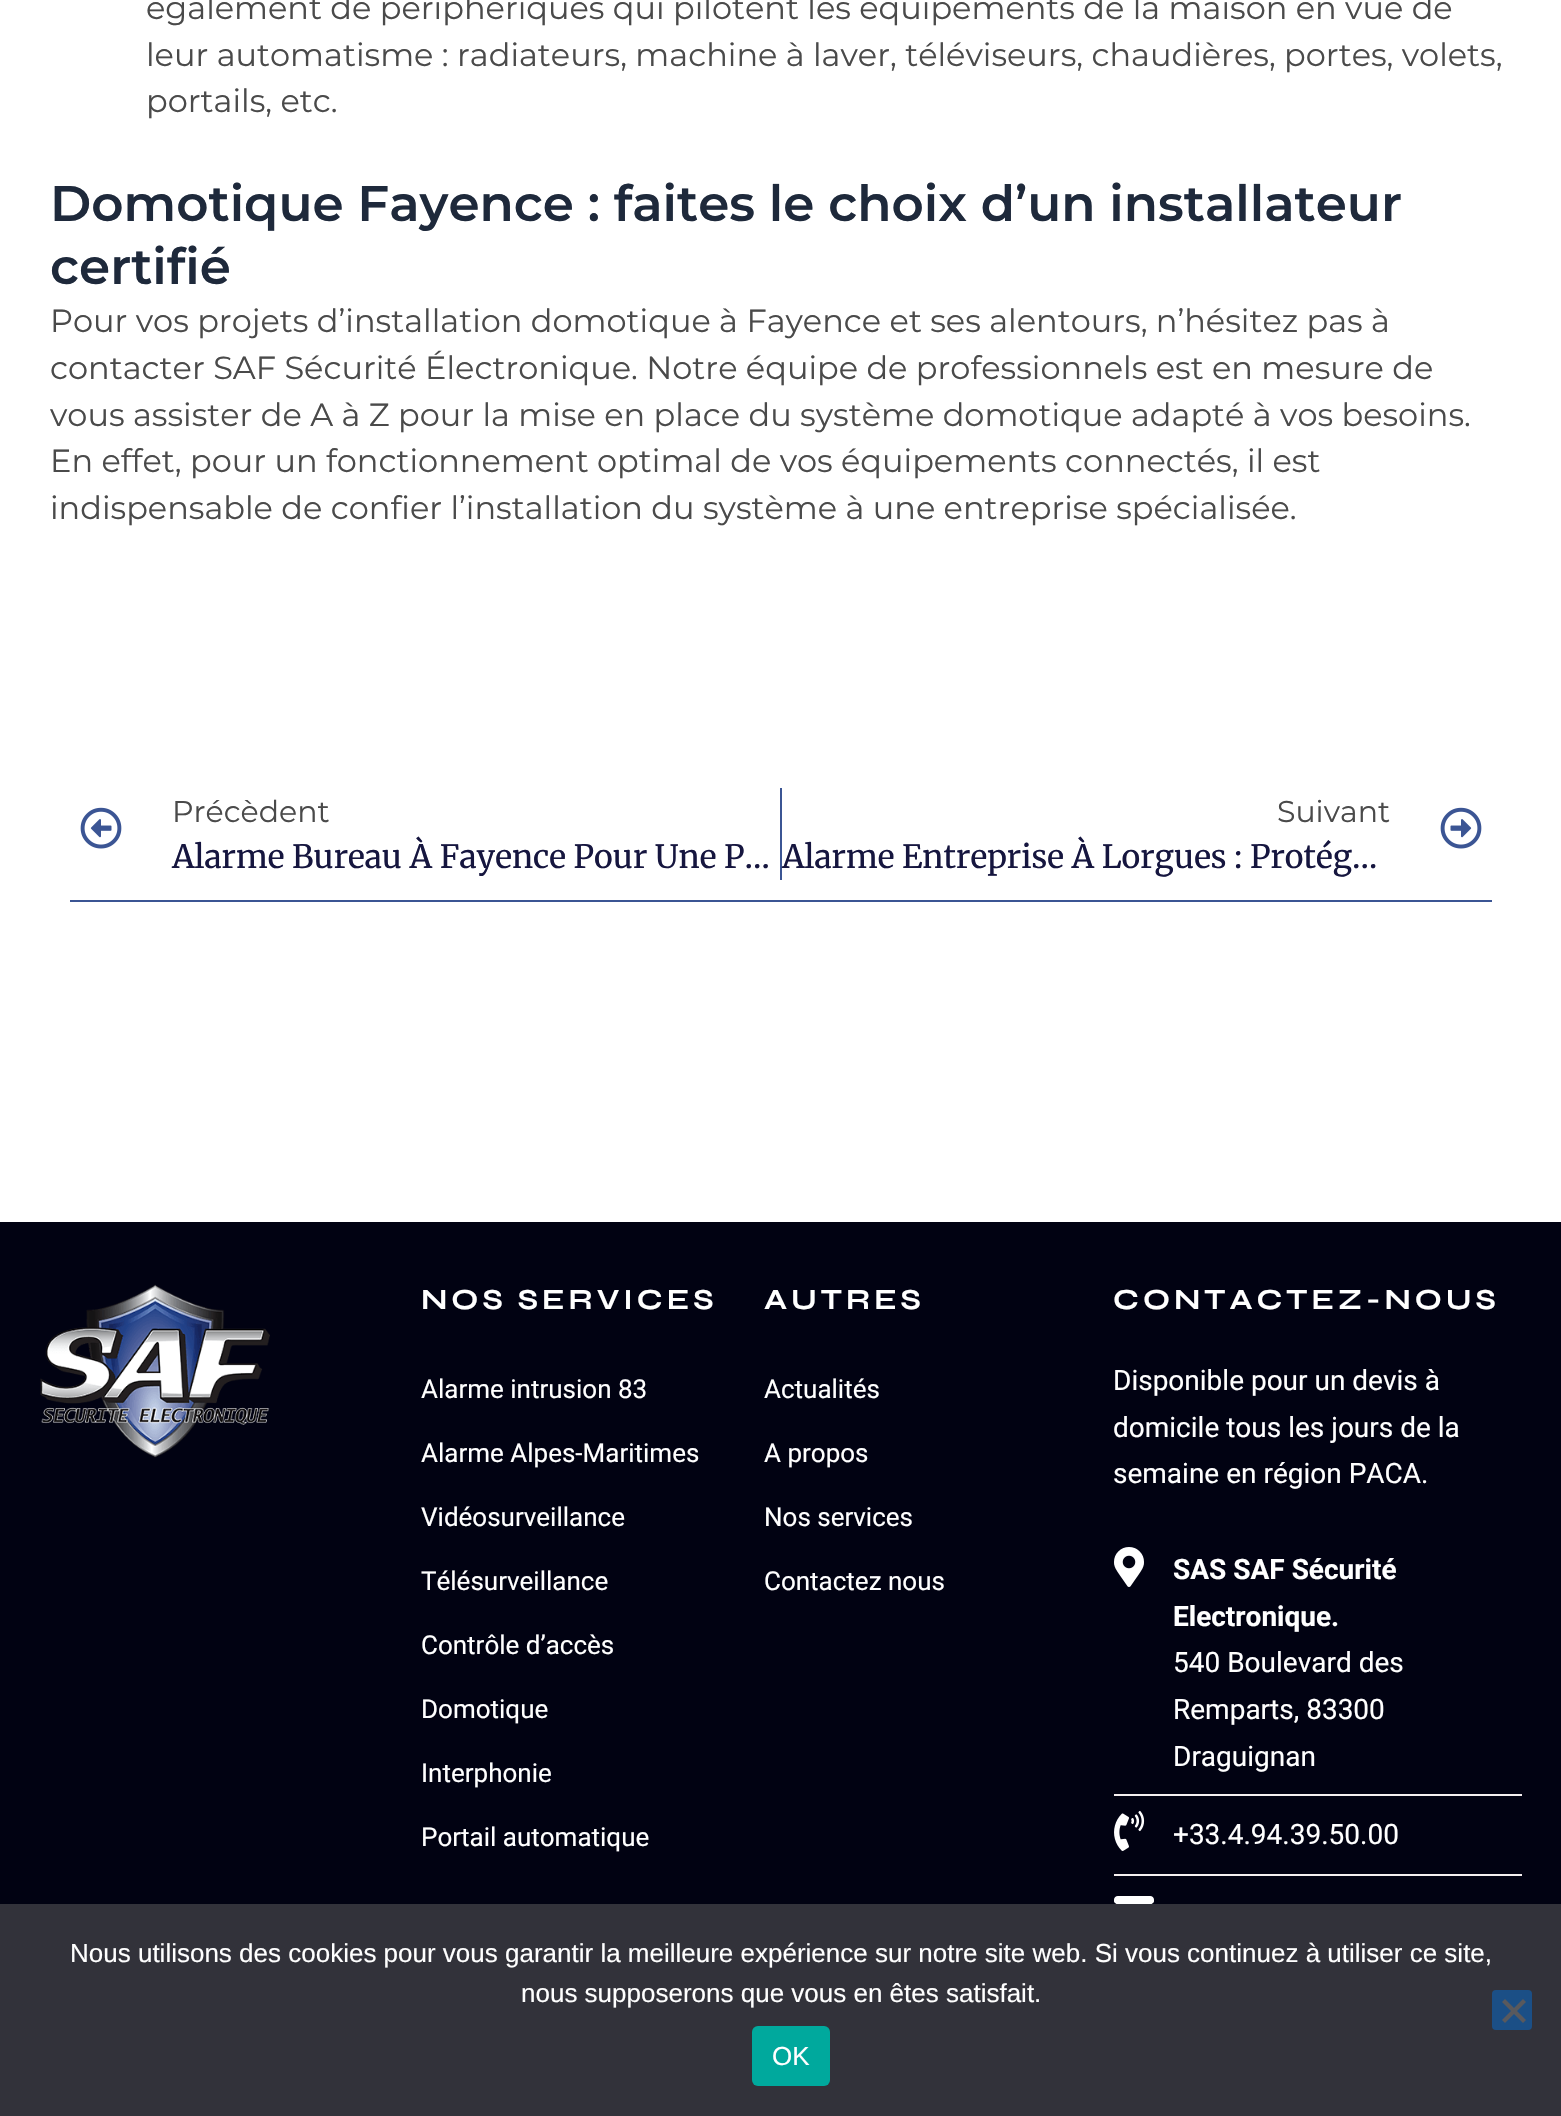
void draw(SkCanvas* canvas) {
	SkPaint paint;
	paint.setAntiAlias(true);
	auto spacedText = [&](const char* s, float x, float y, const SkFont& font, const SkPaint& ink, float letter, float word) {
		std::vector<SkGlyphID> glyphs(font.countText(s, strlen(s), SkTextEncoding::kUTF8));
		std::vector<float> xs(glyphs.size());
		font.textToGlyphs(s, strlen(s), SkTextEncoding::kUTF8, glyphs);
		font.getXPos(glyphs, xs, x);
		float extra = 0;
		for (size_t i = 0; i < glyphs.size(); i++) {
			xs[i] += extra;
			extra += letter + word * (glyphs[i] == font.unicharToGlyph(' '));
		}
		canvas->drawTextBlob(SkTextBlob::MakeFromPosHGlyphs(glyphs, xs, y, font), 0, 0, ink);
	};
	auto svgPath = [&](const char* data, bool evenOdd = false) {
		SkPath result = *SkParsePath::FromSVGString(data);
		if (evenOdd) result.setFillType(SkPathFillType::kEvenOdd);
		return result;
	};
	canvas->clear(0xffffffff);
	SkFont f1(fontMgr->matchFamilyStyle("Montserrat", SkFontStyle::Normal()), 32);
	f1.setSubpixel(true);
	paint.setColor(0xff4a4a4a);
	canvas->drawString("également de périphériques qui pilotent les équipements de la maison en vue de", 146, 19, f1, paint);
	canvas->drawString("leur automatisme : radiateurs, machine à laver, téléviseurs, chaudières, portes, volets,", 146, 66, f1, paint);
	canvas->drawString("portails, etc.", 146, 112, f1, paint);
	SkFont f2(fontMgr->matchFamilyStyle("Montserrat", SkFontStyle(600, SkFontStyle::kNormal_Width, SkFontStyle::kUpright_Slant)), 50);
	f2.setSubpixel(true);
	paint.setColor(0xff1e293b);
	canvas->drawString("Domotique Fayence : faites le choix d’un installateur", 50, 221, f2, paint);
	canvas->drawString("certifié", 50, 284, f2, paint);
	paint.setColor(0xff4a4a4a);
	canvas->drawString("Pour vos projets d’installation domotique à Fayence et ses alentours, n’hésitez pas à", 50, 332, f1, paint);
	canvas->drawString("contacter SAF Sécurité Électronique. Notre équipe de professionnels est en mesure de", 50, 379, f1, paint);
	canvas->drawString("vous assister de A à Z pour la mise en place du système domotique adapté à vos besoins.", 50, 426, f1, paint);
	canvas->drawString("En effet, pour un fonctionnement optimal de vos équipements connectés, il est", 50, 472, f1, paint);
	canvas->drawString("indispensable de confier l’installation du système à une entreprise spécialisée.", 50, 519, f1, paint);
	paint.setColor(0xff3b5594);
	canvas->drawRect(SkRect::MakeXYWH(70, 900, 1422, 2), paint);
	canvas->drawImageRect(SkImages::DeferredFromEncodedData(SkData::MakeFromFileName("img1.png")), SkRect::MakeXYWH(80, 807, 42, 42), SkSamplingOptions());
	SkFont f3(fontMgr->matchFamilyStyle("Montserrat", SkFontStyle::Normal()), 30);
	f3.setSubpixel(true);
	paint.setColor(0xff4a4a4a);
	canvas->drawString("Précèdent", 172, 822, f3, paint);
	SkFont f4(fontMgr->matchFamilyStyle("Merriweather", SkFontStyle::Normal()), 32);
	f4.setSubpixel(true);
	paint.setColor(0xff16163f);
	canvas->drawString("Alarme Bureau À Fayence Pour Une P…", 172, 868, f4, paint);
	paint.setColor(0xff3b5594);
	canvas->drawRect(SkRect::MakeXYWH(780, 788, 2, 92), paint);
	paint.setColor(0xff4a4a4a);
	canvas->drawString("Suivant", 1277, 822, f3, paint);
	paint.setColor(0xff16163f);
	canvas->drawString("Alarme Entreprise À Lorgues : Protég…", 782, 868, f4, paint);
	canvas->drawImageRect(SkImages::DeferredFromEncodedData(SkData::MakeFromFileName("img2.png")), SkRect::MakeXYWH(1440, 807, 42, 42), SkSamplingOptions());
	paint.setColor(0xff010212);
	canvas->drawRect(SkRect::MakeXYWH(0, 1222, 1561, 682), paint);
	canvas->drawImageRect(SkImages::DeferredFromEncodedData(SkData::MakeFromFileName("img3.png")), SkRect::MakeXYWH(40, 1284, 230, 174), SkSamplingOptions());
	SkFont f5(fontMgr->matchFamilyStyle("Syne", SkFontStyle::Bold()), 29.25);
	f5.setSubpixel(true);
	paint.setColor(0xffffffff);
	spacedText("NOS SERVICES", 421, 1309, f5, paint, 4, 0);
	SkFont f6(fontMgr->matchFamilyStyle("Roboto", SkFontStyle::Normal()), 26);
	f6.setSubpixel(true);
	canvas->drawString("Alarme intrusion 83", 421, 1398, f6, paint);
	canvas->drawString("Alarme Alpes-Maritimes", 421, 1462, f6, paint);
	canvas->drawString("Vidéosurveillance", 421, 1526, f6, paint);
	canvas->drawString("Télésurveillance", 421, 1590, f6, paint);
	canvas->drawString("Contrôle d’accès", 421, 1654, f6, paint);
	canvas->drawString("Domotique", 421, 1718, f6, paint);
	canvas->drawString("Interphonie", 421, 1782, f6, paint);
	canvas->drawString("Portail automatique", 421, 1846, f6, paint);
	spacedText("AUTRES", 764, 1309, f5, paint, 4, 0);
	canvas->drawString("Actualités", 764, 1398, f6, paint);
	canvas->drawString("A propos", 764, 1462, f6, paint);
	canvas->drawString("Nos services", 764, 1526, f6, paint);
	canvas->drawString("Contactez nous", 764, 1590, f6, paint);
	spacedText("CONTACTEZ-NOUS", 1113, 1309, f5, paint, 4, 0);
	SkFont f7(fontMgr->matchFamilyStyle("Roboto", SkFontStyle::Normal()), 28);
	f7.setSubpixel(true);
	canvas->drawString("Disponible pour un devis à", 1113, 1390, f7, paint);
	canvas->drawString("domicile tous les jours de la", 1113, 1437, f7, paint);
	canvas->drawString("semaine en région PACA.", 1113, 1483, f7, paint);
	canvas->drawImageRect(SkImages::DeferredFromEncodedData(SkData::MakeFromFileName("img4.png")), SkRect::MakeXYWH(1114, 1547, 30, 40), SkSamplingOptions());
	SkFont f8(fontMgr->matchFamilyStyle("Roboto", SkFontStyle::Bold()), 28);
	f8.setSubpixel(true);
	canvas->drawString("SAS SAF Sécurité", 1173, 1579, f8, paint);
	canvas->drawString("Electronique.", 1173, 1626, f8, paint);
	canvas->drawString("540 Boulevard des", 1173, 1672, f7, paint);
	canvas->drawString("Remparts, 83300", 1173, 1719, f7, paint);
	canvas->drawString("Draguignan", 1173, 1766, f7, paint);
	paint.setColor(0xfff5f0f0);
	canvas->drawRect(SkRect::MakeXYWH(1114, 1794, 408, 2), paint);
	canvas->drawImageRect(SkImages::DeferredFromEncodedData(SkData::MakeFromFileName("img5.png")), SkRect::MakeXYWH(1114, 1810, 31, 41), SkSamplingOptions());
	paint.setColor(0xffffffff);
	canvas->drawString("+33.4.94.39.50.00", 1173, 1844, f7, paint);
	paint.setColor(0xfff5f0f0);
	canvas->drawRect(SkRect::MakeXYWH(1114, 1874, 408, 2), paint);
	canvas->drawImageRect(SkImages::DeferredFromEncodedData(SkData::MakeFromFileName("img6.png")), SkRect::MakeXYWH(1114, 1896, 40, 8), SkSamplingOptions());
	paint.setColor(0xff32323a);
	canvas->drawRect(SkRect::MakeXYWH(0, 1904, 1561, 212), paint);
	SkFont f9(fontMgr->matchFamilyStyle("Liberation Sans", SkFontStyle::Normal()), 26);
	f9.setSubpixel(true);
	paint.setColor(0xffffffff);
	canvas->drawString("Nous utilisons des cookies pour vous garantir la meilleure expérience sur notre site web. Si vous continuez à utiliser ce site,", 70, 1962, f9, paint);
	canvas->drawString("nous supposerons que vous en êtes satisfait.", 521, 2002, f9, paint);
	paint.setColor(0xff1b4f86);
	canvas->drawRoundRect(SkRect::MakeXYWH(1492, 1990, 40, 40), 4, 4, paint);
	paint.setColor(0xff59595d);
	canvas->drawPath(svgPath("M1523 1999L1526 2002L1505 2023L1502 2020Z"), paint);
	canvas->drawPath(svgPath("M1502 2002L1505 1999L1526 2020L1523 2023Z"), paint);
	paint.setColor(0xff00a99d);
	canvas->drawRoundRect(SkRect::MakeXYWH(752, 2026, 78, 60), 6, 6, paint);
	paint.setColor(0xffffffff);
	canvas->drawString("OK", 772, 2065, f9, paint);
}
